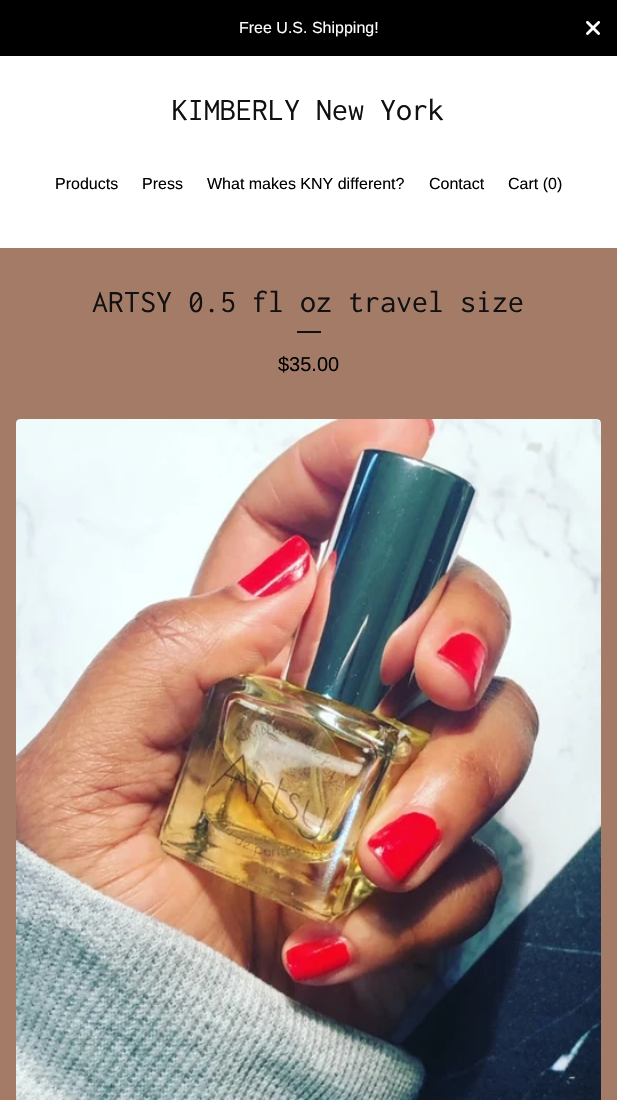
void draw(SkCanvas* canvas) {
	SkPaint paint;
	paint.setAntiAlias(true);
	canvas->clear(0xffffffff);
	paint.setColor(0xff000000);
	canvas->drawRect(SkRect::MakeXYWH(0, 0, 617, 56), paint);
	SkFont f1(fontMgr->matchFamilyStyle("Liberation Sans", SkFontStyle::Normal()), 16);
	f1.setSubpixel(true);
	paint.setColor(0xffffffff);
	canvas->drawString("Free U.S. Shipping!", 239, 33, f1, paint);
	canvas->drawImageRect(SkImages::DeferredFromEncodedData(SkData::MakeFromFileName("img1.png")), SkRect::MakeXYWH(586, 21, 14, 14), SkSamplingOptions());
	SkFont f2(fontMgr->matchFamilyStyle("Inconsolata", SkFontStyle::Normal()), 32);
	f2.setSubpixel(true);
	paint.setColor(0xff111111);
	canvas->drawString("KIMBERLY New York", 172, 120, f2, paint);
	paint.setColor(0xff000000);
	canvas->drawString("Products", 55, 189, f1, paint);
	canvas->drawString("Press", 142, 189, f1, paint);
	canvas->drawString("What makes KNY different?", 207, 189, f1, paint);
	canvas->drawString("Contact", 429, 189, f1, paint);
	canvas->drawString("Cart (0)", 508, 189, f1, paint);
	paint.setColor(0xffa47b67);
	canvas->drawRect(SkRect::MakeXYWH(0, 248, 617, 852), paint);
	paint.setColor(0xff111111);
	canvas->drawString("ARTSY 0.5 fl oz travel size", 92, 312, f2, paint);
	canvas->drawRect(SkRect::MakeXYWH(297, 331, 24, 2), paint);
	SkFont f3(fontMgr->matchFamilyStyle("Liberation Sans", SkFontStyle::Normal()), 20);
	f3.setSubpixel(true);
	paint.setColor(0xff000000);
	canvas->drawString("$35.00", 278, 371, f3, paint);
	canvas->drawImageRect(SkImages::DeferredFromEncodedData(SkData::MakeFromFileName("img2.png")), SkRect::MakeXYWH(16, 419, 585, 681), SkSamplingOptions());
}
